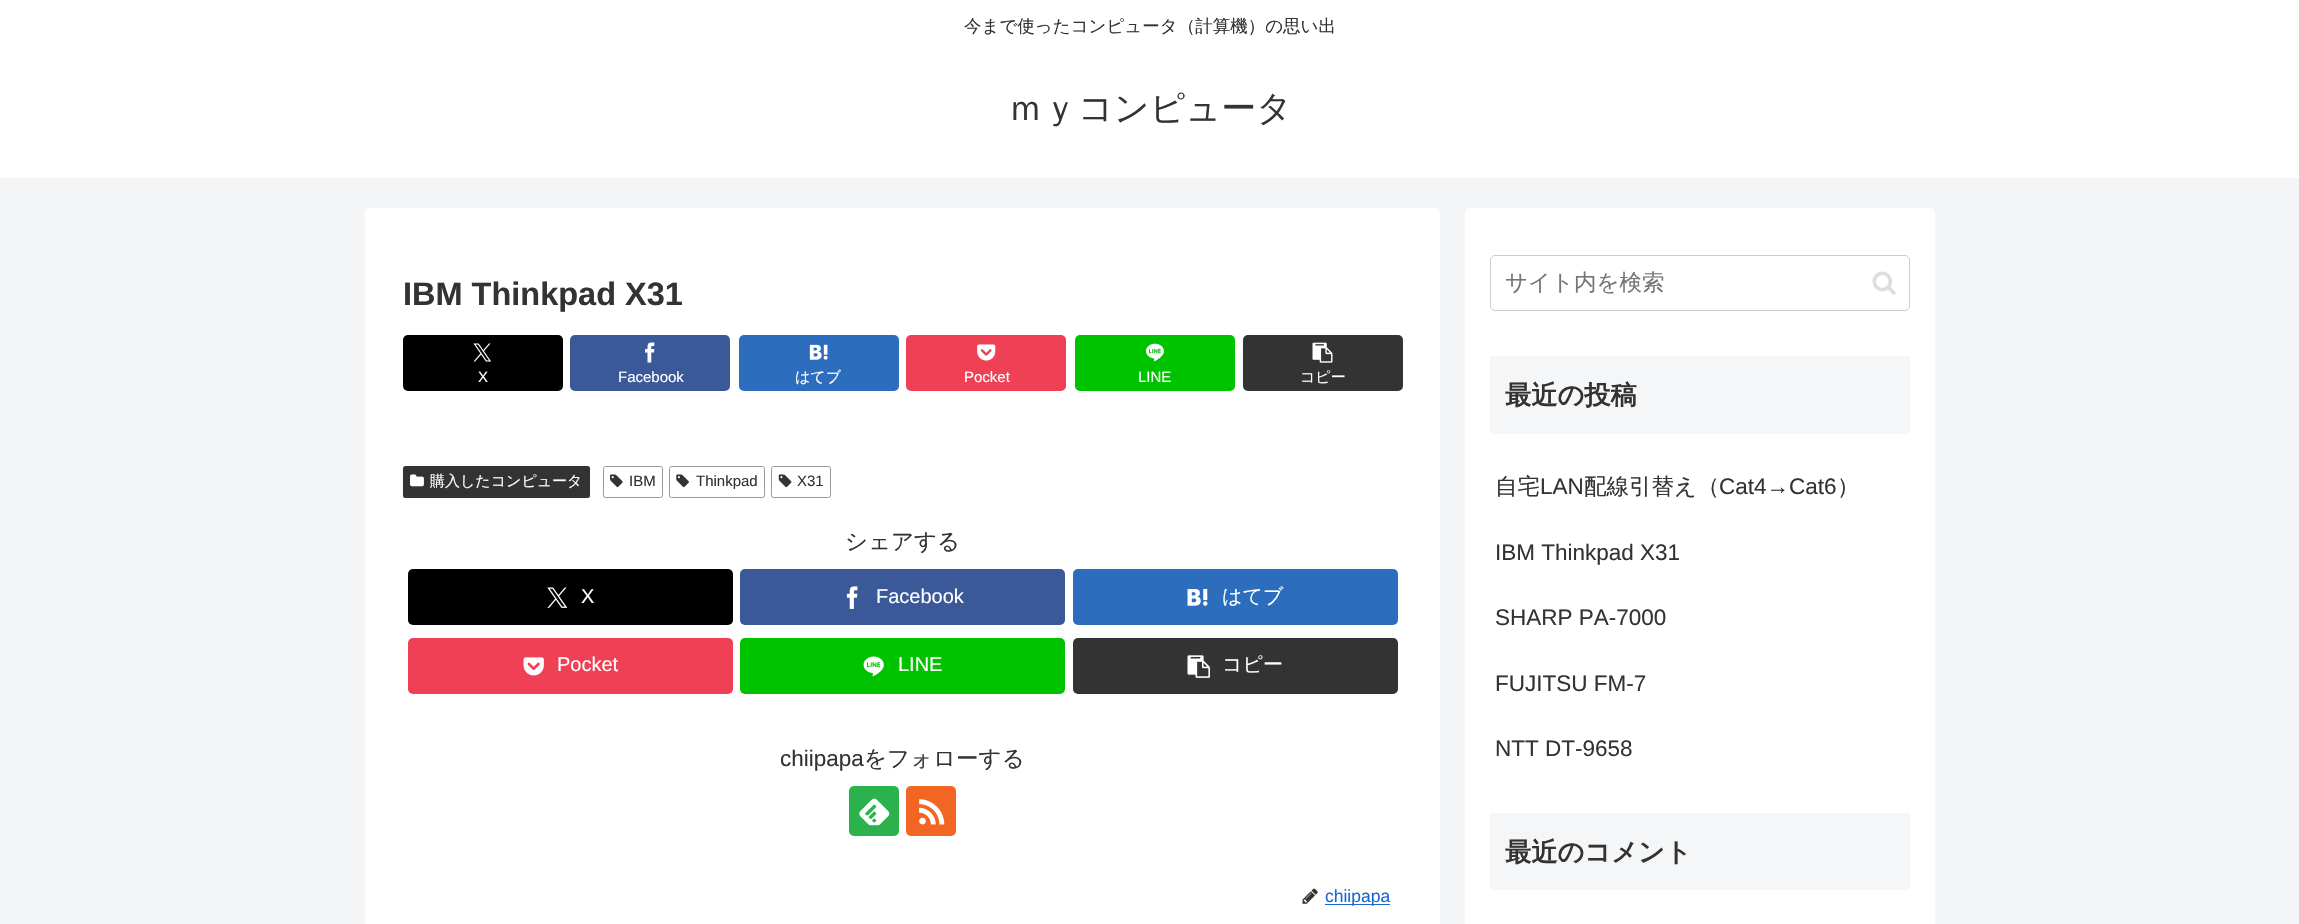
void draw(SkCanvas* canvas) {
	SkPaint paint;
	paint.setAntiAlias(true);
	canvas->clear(0xfff4f5f7);
	paint.setColor(0xffffffff);
	canvas->drawRect(SkRect::MakeXYWH(0, 0, 2299, 178), paint);
	SkFont f1(fontMgr->matchFamilyStyle("WenQuanYi Zen Hei", SkFontStyle(500, SkFontStyle::kNormal_Width, SkFontStyle::kUpright_Slant)), 17.5);
	f1.setSubpixel(true);
	paint.setColor(0xff333333);
	canvas->drawString("今まで使ったコンピュータ（計算機）の思い出", 964, 32, f1, paint);
	SkFont f2(fontMgr->matchFamilyStyle("WenQuanYi Zen Hei", SkFontStyle(500, SkFontStyle::kNormal_Width, SkFontStyle::kUpright_Slant)), 35);
	f2.setSubpixel(true);
	canvas->drawString("ｍｙコンピュータ", 1008, 120, f2, paint);
	paint.setColor(0xffffffff);
	canvas->drawRoundRect(SkRect::MakeXYWH(365, 208, 1075, 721), 5, 5, paint);
	SkFont f3(fontMgr->matchFamilyStyle("Liberation Sans", SkFontStyle::Bold()), 32.5);
	f3.setSubpixel(true);
	paint.setColor(0xff333333);
	canvas->drawString("IBM Thinkpad X31", 403, 305, f3, paint);
	paint.setColor(0xff000000);
	canvas->drawRoundRect(SkRect::MakeXYWH(403, 335, 160, 56), 5, 5, paint);
	canvas->drawImageRect(SkImages::DeferredFromEncodedData(SkData::MakeFromFileName("img1.png")), SkRect::MakeXYWH(473, 343, 19, 19), SkSamplingOptions());
	SkFont f4(fontMgr->matchFamilyStyle("Liberation Sans", SkFontStyle::Normal()), 15);
	f4.setSubpixel(true);
	paint.setColor(0xffffffff);
	canvas->drawString("X", 478, 382, f4, paint);
	paint.setColor(0xff3b5998);
	canvas->drawRoundRect(SkRect::MakeXYWH(570, 335, 160, 56), 5, 5, paint);
	canvas->drawImageRect(SkImages::DeferredFromEncodedData(SkData::MakeFromFileName("img2.png")), SkRect::MakeXYWH(645, 342, 10, 21), SkSamplingOptions());
	paint.setColor(0xffffffff);
	canvas->drawString("Facebook", 618, 382, f4, paint);
	paint.setColor(0xff2c6ebd);
	canvas->drawRoundRect(SkRect::MakeXYWH(739, 335, 160, 56), 5, 5, paint);
	canvas->drawImageRect(SkImages::DeferredFromEncodedData(SkData::MakeFromFileName("img3.png")), SkRect::MakeXYWH(809, 344, 19, 16), SkSamplingOptions());
	SkFont f5(fontMgr->matchFamilyStyle("WenQuanYi Zen Hei", SkFontStyle(500, SkFontStyle::kNormal_Width, SkFontStyle::kUpright_Slant)), 15);
	f5.setSubpixel(true);
	paint.setColor(0xffffffff);
	canvas->drawString("はてブ", 795, 382, f5, paint);
	paint.setColor(0xffef4056);
	canvas->drawRoundRect(SkRect::MakeXYWH(906, 335, 160, 56), 5, 5, paint);
	canvas->drawImageRect(SkImages::DeferredFromEncodedData(SkData::MakeFromFileName("img4.png")), SkRect::MakeXYWH(977, 344, 19, 17), SkSamplingOptions());
	paint.setColor(0xffffffff);
	canvas->drawString("Pocket", 964, 382, f4, paint);
	paint.setColor(0xff00c300);
	canvas->drawRoundRect(SkRect::MakeXYWH(1075, 335, 160, 56), 5, 5, paint);
	canvas->drawImageRect(SkImages::DeferredFromEncodedData(SkData::MakeFromFileName("img5.png")), SkRect::MakeXYWH(1146, 343, 18, 19), SkSamplingOptions());
	paint.setColor(0xffffffff);
	canvas->drawString("LINE", 1138, 382, f4, paint);
	paint.setColor(0xff333333);
	canvas->drawRoundRect(SkRect::MakeXYWH(1243, 335, 160, 56), 5, 5, paint);
	canvas->drawImageRect(SkImages::DeferredFromEncodedData(SkData::MakeFromFileName("img6.png")), SkRect::MakeXYWH(1312, 342, 21, 21), SkSamplingOptions());
	paint.setColor(0xffffffff);
	canvas->drawString("コピー", 1300, 382, f5, paint);
	paint.setColor(0xff333333);
	canvas->drawRoundRect(SkRect::MakeXYWH(403, 466, 187, 32), 2.5, 2.5, paint);
	canvas->drawImageRect(SkImages::DeferredFromEncodedData(SkData::MakeFromFileName("img7.png")), SkRect::MakeXYWH(410, 474, 14, 13), SkSamplingOptions());
	paint.setColor(0xffffffff);
	canvas->drawString("購入したコンピュータ", 430, 486, f5, paint);
	paint.setStroke(true);
	paint.setStrokeWidth(1);
	paint.setColor(0xff999999);
	canvas->drawRoundRect(SkRect::MakeXYWH(603.5, 466.5, 59, 31), 2, 2, paint);
	canvas->drawImageRect(SkImages::DeferredFromEncodedData(SkData::MakeFromFileName("img8.png")), SkRect::MakeXYWH(610, 474, 13, 14), SkSamplingOptions());
	paint.setStroke(false);
	paint.setColor(0xff333333);
	canvas->drawString("IBM", 629, 486, f4, paint);
	paint.setStroke(true);
	paint.setColor(0xff999999);
	canvas->drawRoundRect(SkRect::MakeXYWH(669.5, 466.5, 95, 31), 2, 2, paint);
	canvas->drawImageRect(SkImages::DeferredFromEncodedData(SkData::MakeFromFileName("img9.png")), SkRect::MakeXYWH(676, 474, 13, 14), SkSamplingOptions());
	paint.setStroke(false);
	paint.setColor(0xff333333);
	canvas->drawString("Thinkpad", 696, 486, f4, paint);
	paint.setStroke(true);
	paint.setColor(0xff999999);
	canvas->drawRoundRect(SkRect::MakeXYWH(771.5, 466.5, 59, 31), 2, 2, paint);
	canvas->drawImageRect(SkImages::DeferredFromEncodedData(SkData::MakeFromFileName("img10.png")), SkRect::MakeXYWH(778, 474, 14, 14), SkSamplingOptions());
	paint.setStroke(false);
	paint.setColor(0xff333333);
	canvas->drawString("X31", 797, 486, f4, paint);
	SkFont f6(fontMgr->matchFamilyStyle("WenQuanYi Zen Hei", SkFontStyle(500, SkFontStyle::kNormal_Width, SkFontStyle::kUpright_Slant)), 22.5);
	f6.setSubpixel(true);
	canvas->drawString("シェアする", 845, 549, f6, paint);
	paint.setColor(0xff000000);
	canvas->drawRoundRect(SkRect::MakeXYWH(408, 569, 325, 56), 5, 5, paint);
	canvas->drawImageRect(SkImages::DeferredFromEncodedData(SkData::MakeFromFileName("img11.png")), SkRect::MakeXYWH(547, 587, 21, 21), SkSamplingOptions());
	SkFont f7(fontMgr->matchFamilyStyle("Liberation Sans", SkFontStyle::Normal()), 20);
	f7.setSubpixel(true);
	paint.setColor(0xffffffff);
	canvas->drawString("X", 581, 603, f7, paint);
	paint.setColor(0xff3b5998);
	canvas->drawRoundRect(SkRect::MakeXYWH(740, 569, 325, 56), 5, 5, paint);
	canvas->drawImageRect(SkImages::DeferredFromEncodedData(SkData::MakeFromFileName("img12.png")), SkRect::MakeXYWH(846, 586, 12, 23), SkSamplingOptions());
	paint.setColor(0xffffffff);
	canvas->drawString("Facebook", 876, 603, f7, paint);
	paint.setColor(0xff2c6ebd);
	canvas->drawRoundRect(SkRect::MakeXYWH(1073, 569, 325, 56), 5, 5, paint);
	canvas->drawImageRect(SkImages::DeferredFromEncodedData(SkData::MakeFromFileName("img13.png")), SkRect::MakeXYWH(1187, 589, 21, 17), SkSamplingOptions());
	SkFont f8(fontMgr->matchFamilyStyle("WenQuanYi Zen Hei", SkFontStyle(500, SkFontStyle::kNormal_Width, SkFontStyle::kUpright_Slant)), 20);
	f8.setSubpixel(true);
	paint.setColor(0xffffffff);
	canvas->drawString("はてブ", 1222, 603, f8, paint);
	paint.setColor(0xffef4056);
	canvas->drawRoundRect(SkRect::MakeXYWH(408, 638, 325, 56), 5, 5, paint);
	canvas->drawImageRect(SkImages::DeferredFromEncodedData(SkData::MakeFromFileName("img14.png")), SkRect::MakeXYWH(523, 657, 21, 19), SkSamplingOptions());
	paint.setColor(0xffffffff);
	canvas->drawString("Pocket", 557, 671, f7, paint);
	paint.setColor(0xff00c300);
	canvas->drawRoundRect(SkRect::MakeXYWH(740, 638, 325, 56), 5, 5, paint);
	canvas->drawImageRect(SkImages::DeferredFromEncodedData(SkData::MakeFromFileName("img15.png")), SkRect::MakeXYWH(863, 656, 21, 21), SkSamplingOptions());
	paint.setColor(0xffffffff);
	canvas->drawString("LINE", 898, 671, f7, paint);
	paint.setColor(0xff333333);
	canvas->drawRoundRect(SkRect::MakeXYWH(1073, 638, 325, 56), 5, 5, paint);
	canvas->drawImageRect(SkImages::DeferredFromEncodedData(SkData::MakeFromFileName("img16.png")), SkRect::MakeXYWH(1187, 655, 23, 23), SkSamplingOptions());
	paint.setColor(0xffffffff);
	canvas->drawString("コピー", 1222, 671, f8, paint);
	SkFont f9(fontMgr->matchFamilyStyle("Liberation Sans", SkFontStyle::Normal()), 22.5);
	f9.setSubpixel(true);
	paint.setColor(0xff333333);
	canvas->drawString("chiipapa", 780, 766, f9, paint);
	canvas->drawString("をフォローする", 864, 766, f6, paint);
	paint.setColor(0xff2bb24c);
	canvas->drawRoundRect(SkRect::MakeXYWH(849, 786, 50, 50), 5, 5, paint);
	canvas->drawImageRect(SkImages::DeferredFromEncodedData(SkData::MakeFromFileName("img17.png")), SkRect::MakeXYWH(859, 798, 31, 28), SkSamplingOptions());
	paint.setColor(0xfff26522);
	canvas->drawRoundRect(SkRect::MakeXYWH(906, 786, 50, 50), 5, 5, paint);
	canvas->drawImageRect(SkImages::DeferredFromEncodedData(SkData::MakeFromFileName("img18.png")), SkRect::MakeXYWH(919, 799, 26, 26), SkSamplingOptions());
	canvas->drawImageRect(SkImages::DeferredFromEncodedData(SkData::MakeFromFileName("img19.png")), SkRect::MakeXYWH(1302, 888, 16, 16), SkSamplingOptions());
	paint.setColor(0xff1967d2);
	canvas->drawRect(SkRect::MakeXYWH(1325, 904, 65, 1), paint);
	SkFont f10(fontMgr->matchFamilyStyle("Liberation Sans", SkFontStyle::Normal()), 17.5);
	f10.setSubpixel(true);
	canvas->drawString("chiipapa", 1325, 902, f10, paint);
	paint.setColor(0xffffffff);
	canvas->drawRoundRect(SkRect::MakeXYWH(1465, 208, 470, 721), 5, 5, paint);
	paint.setStroke(true);
	paint.setColor(0xffcccccc);
	canvas->drawRoundRect(SkRect::MakeXYWH(1490.5, 255.5, 419, 55), 4.5, 4.5, paint);
	paint.setStroke(false);
	paint.setColor(0xff757575);
	canvas->drawString("サイト内を検索", 1505, 290, f6, paint);
	canvas->drawImageRect(SkImages::DeferredFromEncodedData(SkData::MakeFromFileName("img20.png")), SkRect::MakeXYWH(1872, 271, 24, 24), SkSamplingOptions());
	paint.setColor(0xfff5f6f7);
	canvas->drawRoundRect(SkRect::MakeXYWH(1490, 356, 420, 78), 2.5, 2.5, paint);
	SkFont f11(fontMgr->matchFamilyStyle("WenQuanYi Zen Hei", SkFontStyle::Bold()), 26.25);
	f11.setSubpixel(true);
	paint.setColor(0xff333333);
	canvas->drawString("最近の投稿", 1505, 404, f11, paint);
	canvas->drawString("自宅", 1495, 494, f6, paint);
	canvas->drawString("LAN", 1540, 494, f9, paint);
	canvas->drawString("配線引替え（", 1584, 494, f6, paint);
	canvas->drawString("Cat4→Cat6", 1719, 494, f9, paint);
	canvas->drawString("）", 1837, 494, f6, paint);
	canvas->drawString("IBM Thinkpad X31", 1495, 560, f9, paint);
	canvas->drawString("SHARP PA-7000", 1495, 625, f9, paint);
	canvas->drawString("FUJITSU FM-7", 1495, 691, f9, paint);
	canvas->drawString("NTT DT-9658", 1495, 756, f9, paint);
	paint.setColor(0xfff5f6f7);
	canvas->drawRoundRect(SkRect::MakeXYWH(1490, 813, 420, 77), 2.5, 2.5, paint);
	paint.setColor(0xff333333);
	canvas->drawString("最近のコメント", 1505, 861, f11, paint);
}
